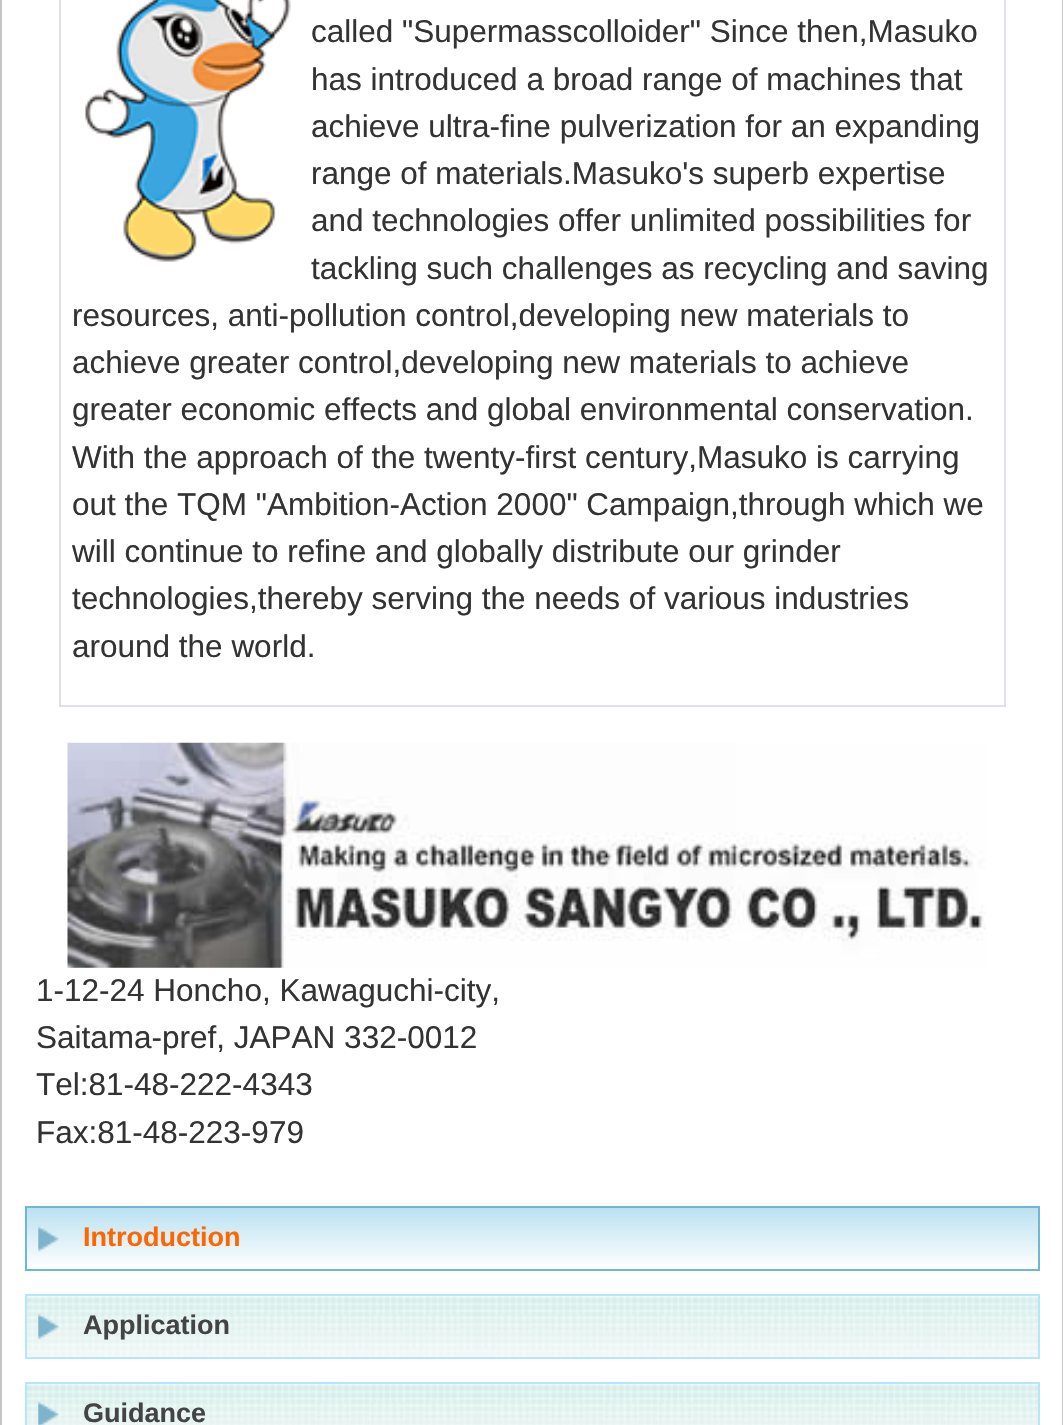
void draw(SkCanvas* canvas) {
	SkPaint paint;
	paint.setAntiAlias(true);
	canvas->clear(0xffffffff);
	paint.setStroke(true);
	paint.setStrokeWidth(2);
	paint.setColor(0xffc5c5c5);
	canvas->drawRect(SkRect::MakeXYWH(1, -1, 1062, 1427), paint);
	paint.setColor(0xffdee2e6);
	canvas->drawRect(SkRect::MakeXYWH(60, -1, 945, 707), paint);
	canvas->drawImageRect(SkImages::DeferredFromEncodedData(SkData::MakeFromFileName("img1.png")), SkRect::MakeXYWH(85, 0, 206, 262), SkSamplingOptions());
	SkFont f1(fontMgr->matchFamilyStyle("Liberation Sans", SkFontStyle::Normal()), 31.5);
	f1.setSubpixel(true);
	paint.setStroke(false);
	paint.setColor(0xff333333);
	canvas->drawString("called \"Supermasscolloider\" Since then,Masuko", 311, 42, f1, paint);
	canvas->drawString("has introduced a broad range of machines that", 311, 90, f1, paint);
	canvas->drawString("achieve ultra-fine pulverization for an expanding", 311, 137, f1, paint);
	canvas->drawString("range of materials.Masuko's superb expertise", 311, 184, f1, paint);
	canvas->drawString("and technologies offer unlimited possibilities for", 311, 231, f1, paint);
	canvas->drawString("tackling such challenges as recycling and saving", 311, 279, f1, paint);
	canvas->drawString("resources, anti-pollution control,developing new materials to", 72, 326, f1, paint);
	canvas->drawString("achieve greater control,developing new materials to achieve", 72, 373, f1, paint);
	canvas->drawString("greater economic effects and global environmental conservation.", 72, 420, f1, paint);
	canvas->drawString("With the approach of the twenty-first century,Masuko is carrying", 72, 468, f1, paint);
	canvas->drawString("out the TQM \"Ambition-Action 2000\" Campaign,through which we", 72, 515, f1, paint);
	canvas->drawString("will continue to refine and globally distribute our grinder", 72, 562, f1, paint);
	canvas->drawString("technologies,thereby serving the needs of various industries", 72, 609, f1, paint);
	canvas->drawString("around the world.", 72, 657, f1, paint);
	canvas->drawImageRect(SkImages::DeferredFromEncodedData(SkData::MakeFromFileName("img2.png")), SkRect::MakeXYWH(67, 742, 919, 226), SkSamplingOptions());
	canvas->drawString("1-12-24 Honcho, Kawaguchi-city,", 36, 1001, f1, paint);
	canvas->drawString("Saitama-pref, JAPAN 332-0012", 36, 1048, f1, paint);
	canvas->drawString("Tel:81-48-222-4343", 36, 1095, f1, paint);
	canvas->drawString("Fax:81-48-223-979", 36, 1143, f1, paint);
	{
		const SkColor colors[] = {0xffbae1f0, 0xffffffff};
		const float stops[] = {0, 1};
		const SkPoint ends[] = {{532, 1208}, {532, 1269}};
		paint.setShader(SkGradientShader::MakeLinear(ends, colors, stops, 2, SkTileMode::kClamp));
		paint.setAlpha(255);
	}
	canvas->drawRect(SkRect::MakeXYWH(27, 1208, 1011, 59), paint);
	paint.setStroke(true);
	paint.setShader(nullptr);
	paint.setColor(0xff70b7d1);
	canvas->drawRect(SkRect::MakeXYWH(26, 1207, 1013, 63), paint);
	canvas->drawImageRect(SkImages::DeferredFromEncodedData(SkData::MakeFromFileName("img3.png")), SkRect::MakeXYWH(38, 1226, 21, 26), SkSamplingOptions());
	SkFont f2(fontMgr->matchFamilyStyle("Liberation Sans", SkFontStyle::Bold()), 27);
	f2.setSubpixel(true);
	paint.setStroke(false);
	paint.setColor(0xffff6600);
	canvas->drawString("Introduction", 83, 1246, f2, paint);
	canvas->drawImageRect(SkImages::DeferredFromEncodedData(SkData::MakeFromFileName("img4.png")), SkRect::MakeXYWH(24, 1295, 1014, 64), SkSamplingOptions());
	paint.setStroke(true);
	paint.setColor(0xffb5e7f7);
	canvas->drawRect(SkRect::MakeXYWH(26, 1295, 1013, 63), paint);
	canvas->drawImageRect(SkImages::DeferredFromEncodedData(SkData::MakeFromFileName("img5.png")), SkRect::MakeXYWH(38, 1314, 21, 25), SkSamplingOptions());
	paint.setStroke(false);
	paint.setColor(0xff444444);
	canvas->drawString("Application", 83, 1334, f2, paint);
	canvas->drawImageRect(SkImages::DeferredFromEncodedData(SkData::MakeFromFileName("img6.png")), SkRect::MakeXYWH(24, 1383, 1014, 42), SkSamplingOptions());
	paint.setStroke(true);
	paint.setColor(0xffb5e7f7);
	canvas->drawRect(SkRect::MakeXYWH(26, 1383, 1013, 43), paint);
	canvas->drawImageRect(SkImages::DeferredFromEncodedData(SkData::MakeFromFileName("img7.png")), SkRect::MakeXYWH(38, 1402, 21, 23), SkSamplingOptions());
	paint.setStroke(false);
	paint.setColor(0xff444444);
	canvas->drawString("Guidance", 83, 1422, f2, paint);
}
